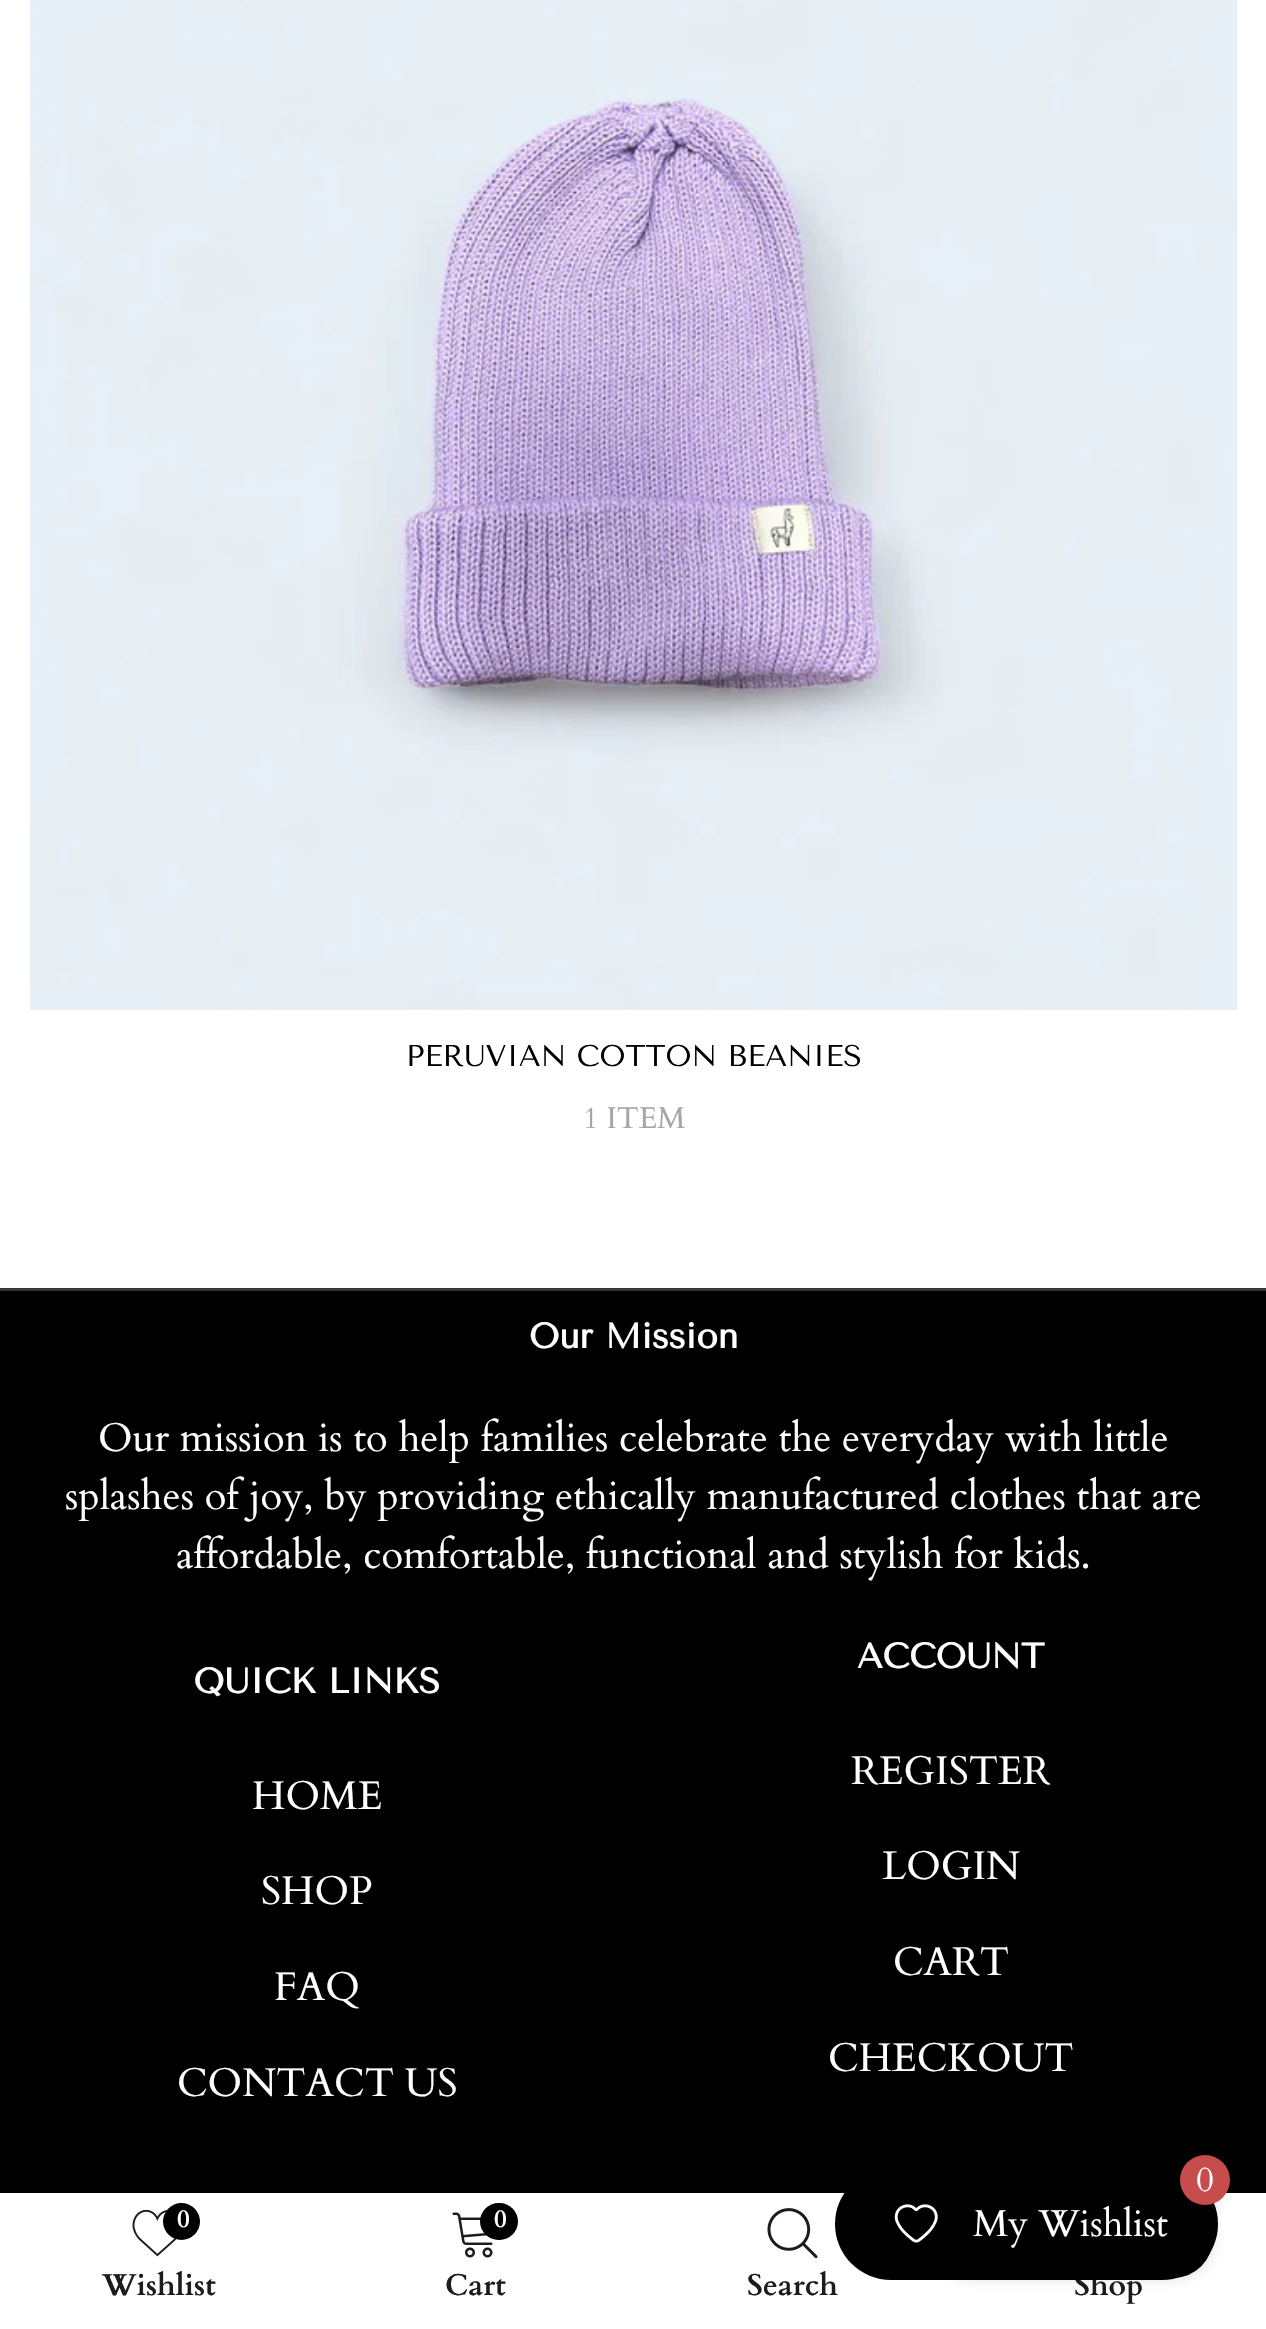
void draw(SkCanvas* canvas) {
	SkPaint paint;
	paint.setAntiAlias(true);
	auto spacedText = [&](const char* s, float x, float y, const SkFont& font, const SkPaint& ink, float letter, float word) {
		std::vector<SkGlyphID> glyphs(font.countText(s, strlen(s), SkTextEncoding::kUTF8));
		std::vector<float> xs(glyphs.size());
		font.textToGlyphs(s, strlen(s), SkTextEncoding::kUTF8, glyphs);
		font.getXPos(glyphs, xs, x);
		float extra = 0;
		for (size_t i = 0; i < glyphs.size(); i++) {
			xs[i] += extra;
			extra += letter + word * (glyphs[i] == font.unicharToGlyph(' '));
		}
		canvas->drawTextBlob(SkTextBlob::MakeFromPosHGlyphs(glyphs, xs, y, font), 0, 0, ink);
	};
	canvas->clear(0xffffffff);
	canvas->drawImageRect(SkImages::DeferredFromEncodedData(SkData::MakeFromFileName("img1.png")), SkRect::MakeXYWH(30, 0, 1208, 1010), SkSamplingOptions());
	SkFont f1(fontMgr->matchFamilyStyle("Tenor Sans", SkFontStyle::Normal()), 30);
	f1.setSubpixel(true);
	paint.setColor(0xff000000);
	canvas->drawString("PERUVIAN COTTON BEANIES", 406, 1066, f1, paint);
	SkFont f2(fontMgr->matchFamilyStyle("Cardo", SkFontStyle::Normal()), 30);
	f2.setSubpixel(true);
	paint.setColor(0xffa6a6a6);
	canvas->drawString("1 ITEM", 583, 1128, f2, paint);
	paint.setColor(0xff000000);
	canvas->drawRect(SkRect::MakeXYWH(0, 1291, 1266, 902), paint);
	paint.setColor(0xff363636);
	canvas->drawRect(SkRect::MakeXYWH(0, 1288, 1266, 3), paint);
	SkFont f3(fontMgr->matchFamilyStyle("Tenor Sans", SkFontStyle::Bold()), 35);
	f3.setSubpixel(true);
	paint.setColor(0xffffffff);
	canvas->drawString("Our Mission", 529, 1348, f3, paint);
	SkFont f4(fontMgr->matchFamilyStyle("Cardo", SkFontStyle::Normal()), 40);
	f4.setSubpixel(true);
	canvas->drawString("Our mission is to help families celebrate the everyday with little", 98, 1451, f4, paint);
	canvas->drawString("splashes of joy, by providing ethically manufactured clothes that are", 65, 1509, f4, paint);
	canvas->drawString("affordable, comfortable, functional and stylish for kids.", 176, 1568, f4, paint);
	canvas->drawString("QUICK LINKS", 193, 1693, f3, paint);
	canvas->drawString("HOME", 252, 1809, f4, paint);
	canvas->drawString("SHOP", 261, 1904, f4, paint);
	canvas->drawString("FAQ", 274, 2000, f4, paint);
	canvas->drawString("CONTACT US", 177, 2096, f4, paint);
	canvas->drawString("ACCOUNT", 857, 1668, f3, paint);
	canvas->drawString("REGISTER", 851, 1784, f4, paint);
	canvas->drawString("LOGIN", 882, 1879, f4, paint);
	canvas->drawString("CART", 893, 1975, f4, paint);
	canvas->drawString("CHECKOUT", 828, 2071, f4, paint);
	paint.setColor(0x26000000);
	paint.setMaskFilter(SkMaskFilter::MakeBlur(kNormal_SkBlurStyle, 6));
	canvas->drawRoundRect(SkRect::MakeXYWH(930, 2128, 283, 150), 40, 40, paint);
	paint.setMaskFilter(nullptr);
	SkFont f5(fontMgr->matchFamilyStyle("Cardo", SkFontStyle::Bold()), 30);
	f5.setSubpixel(true);
	paint.setColor(0xff1c1c1c);
	canvas->drawString("Shop", 1074, 2295, f5, paint);
	paint.setColor(0xff000000);
	canvas->drawRoundRect(SkRect::MakeXYWH(930, 2128, 283, 150), 40, 40, paint);
	paint.setColor(0xff1c1c1c);
	canvas->drawString("Search", 747, 2295, f5, paint);
	paint.setColor(0xff000000);
	canvas->drawRoundRect(SkRect::MakeXYWH(835, 2168, 383, 112), 56, 56, paint);
	paint.setColor(0xffc74d4d);
	canvas->drawCircle(1205, 2180, 25, paint);
	SkFont f6(fontMgr->matchFamilyStyle("Cardo", SkFontStyle::Normal()), 35);
	f6.setSubpixel(true);
	paint.setColor(0xffffffff);
	canvas->drawString("0", 1196, 2191, f6, paint);
	canvas->drawImageRect(SkImages::DeferredFromEncodedData(SkData::MakeFromFileName("img2.png")), SkRect::MakeXYWH(894, 2204, 44, 39), SkSamplingOptions());
	SkFont f7(fontMgr->matchFamilyStyle("Cardo", SkFontStyle::Normal()), 37.5);
	f7.setSubpixel(true);
	canvas->drawString("My Wishlist", 973, 2236, f7, paint);
	canvas->drawImageRect(SkImages::DeferredFromEncodedData(SkData::MakeFromFileName("img3.png")), SkRect::MakeXYWH(132, 2209, 45, 48), SkSamplingOptions());
	paint.setColor(0xff000000);
	canvas->drawCircle(181.5, 2221.5, 18.5, paint);
	SkFont f8(fontMgr->matchFamilyStyle("Cardo", SkFontStyle::Bold()), 25);
	f8.setSubpixel(true);
	paint.setColor(0xffffffff);
	spacedText("0", 177, 2227, f8, paint, -2, 0);
	paint.setColor(0xff1c1c1c);
	canvas->drawString("Wishlist", 102, 2295, f5, paint);
	canvas->drawImageRect(SkImages::DeferredFromEncodedData(SkData::MakeFromFileName("img4.png")), SkRect::MakeXYWH(452, 2212, 41, 46), SkSamplingOptions());
	paint.setColor(0xff000000);
	canvas->drawRoundRect(SkRect::MakeXYWH(480, 2203, 38, 37), 18.5, 18.5, paint);
	paint.setColor(0xffffffff);
	spacedText("0", 494, 2227, f8, paint, -2, 0);
	paint.setColor(0xff1c1c1c);
	canvas->drawString("Cart", 445, 2295, f5, paint);
	canvas->drawImageRect(SkImages::DeferredFromEncodedData(SkData::MakeFromFileName("img5.png")), SkRect::MakeXYWH(767, 2208, 51, 51), SkSamplingOptions());
}
